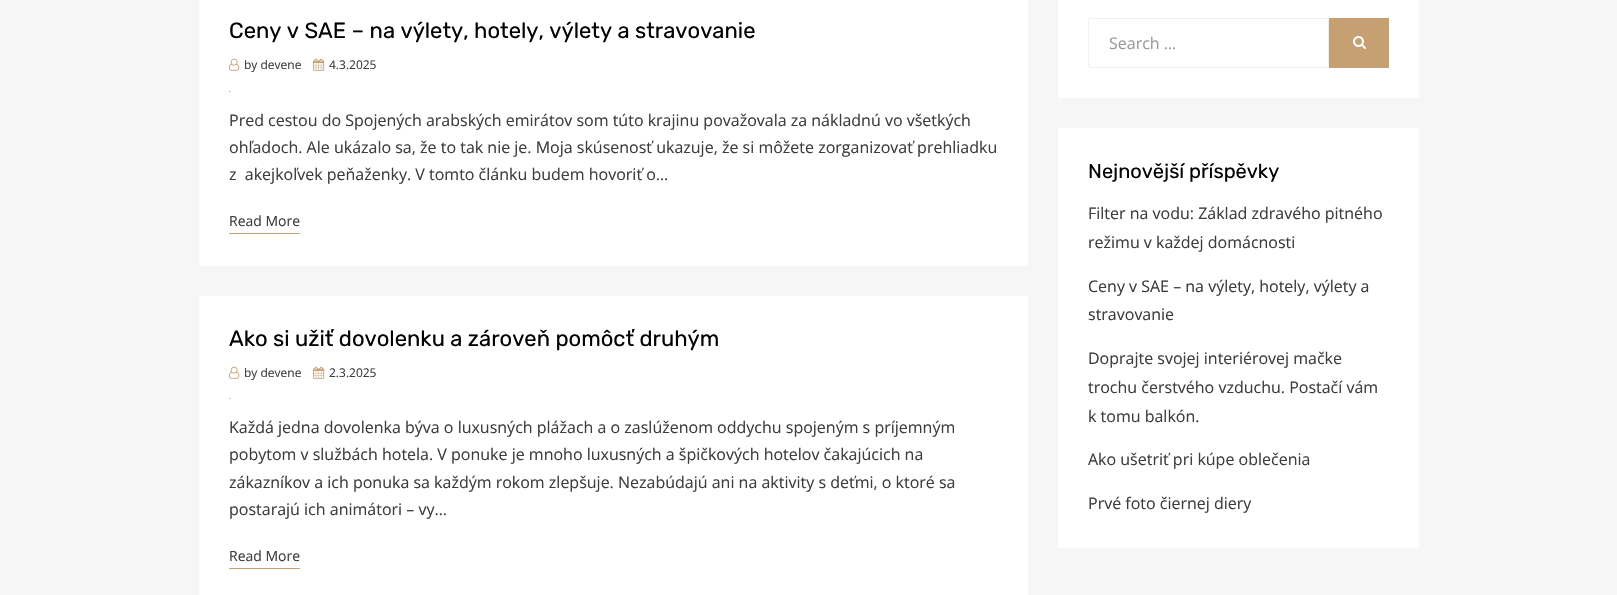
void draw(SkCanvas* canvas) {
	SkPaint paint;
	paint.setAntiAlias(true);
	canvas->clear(0xfff6f6f6);
	paint.setColor(0xffffffff);
	canvas->drawRect(SkRect::MakeXYWH(199, 0, 829, 266), paint);
	SkFont f1(fontMgr->matchFamilyStyle("Rubik", SkFontStyle::Normal()), 22);
	f1.setSubpixel(true);
	paint.setColor(0xff020202);
	canvas->drawString("Ceny v SAE – na výlety, hotely, výlety a stravovanie", 229, 38, f1, paint);
	canvas->drawImageRect(SkImages::DeferredFromEncodedData(SkData::MakeFromFileName("img1.png")), SkRect::MakeXYWH(229, 58, 11, 13), SkSamplingOptions());
	SkFont f2(fontMgr->matchFamilyStyle("Open Sans", SkFontStyle::Normal()), 12);
	f2.setSubpixel(true);
	paint.setColor(0xff3d3d3d);
	canvas->drawString("by devene", 244, 69, f2, paint);
	canvas->drawImageRect(SkImages::DeferredFromEncodedData(SkData::MakeFromFileName("img2.png")), SkRect::MakeXYWH(313, 58, 12, 13), SkSamplingOptions());
	canvas->drawString("4.3.2025", 329, 69, f2, paint);
	paint.setColor(0xff8e918c);
	canvas->drawRect(SkRect::MakeXYWH(229, 91, 1, 1), paint);
	SkFont f3(fontMgr->matchFamilyStyle("Open Sans", SkFontStyle::Normal()), 16);
	f3.setSubpixel(true);
	paint.setColor(0xff3d3d3d);
	canvas->drawString("Pred cestou do Spojených arabských emirátov som túto krajinu považovala za nákladnú vo všetkých", 229, 126, f3, paint);
	canvas->drawString("ohľadoch. Ale ukázalo sa, že to tak nie je. Moja skúsenosť ukazuje, že si môžete zorganizovať prehliadku", 229, 153, f3, paint);
	canvas->drawString("z  akejkoľvek peňaženky. V tomto článku budem hovoriť o…", 229, 180, f3, paint);
	paint.setColor(0xffc69f73);
	canvas->drawRect(SkRect::MakeXYWH(229, 233, 71, 1), paint);
	SkFont f4(fontMgr->matchFamilyStyle("Open Sans", SkFontStyle::Normal()), 14);
	f4.setSubpixel(true);
	paint.setColor(0xff3d3d3d);
	canvas->drawString("Read More", 229, 226, f4, paint);
	paint.setColor(0xffffffff);
	canvas->drawRect(SkRect::MakeXYWH(199, 296, 829, 299), paint);
	paint.setColor(0xff020202);
	canvas->drawString("Ako si užiť dovolenku a zároveň pomôcť druhým", 229, 346, f1, paint);
	canvas->drawImageRect(SkImages::DeferredFromEncodedData(SkData::MakeFromFileName("img1.png")), SkRect::MakeXYWH(229, 366, 11, 13), SkSamplingOptions());
	paint.setColor(0xff3d3d3d);
	canvas->drawString("by devene", 244, 377, f2, paint);
	canvas->drawImageRect(SkImages::DeferredFromEncodedData(SkData::MakeFromFileName("img2.png")), SkRect::MakeXYWH(313, 366, 12, 13), SkSamplingOptions());
	canvas->drawString("2.3.2025", 329, 377, f2, paint);
	paint.setColor(0xffb19977);
	canvas->drawRect(SkRect::MakeXYWH(229, 398, 1, 1), paint);
	paint.setColor(0xff3d3d3d);
	canvas->drawString("Každá jedna dovolenka býva o luxusných plážach a o zaslúženom oddychu spojeným s príjemným", 229, 433, f3, paint);
	canvas->drawString("pobytom v službách hotela. V ponuke je mnoho luxusných a špičkových hotelov čakajúcich na", 229, 460, f3, paint);
	canvas->drawString("zákazníkov a ich ponuka sa každým rokom zlepšuje. Nezabúdajú ani na aktivity s deťmi, o ktoré sa", 229, 488, f3, paint);
	canvas->drawString("postarajú ich animátori – vy…", 229, 515, f3, paint);
	paint.setColor(0xffc69f73);
	canvas->drawRect(SkRect::MakeXYWH(229, 568, 71, 1), paint);
	paint.setColor(0xff3d3d3d);
	canvas->drawString("Read More", 229, 561, f4, paint);
	paint.setColor(0xffffffff);
	canvas->drawRect(SkRect::MakeXYWH(1058, 0, 361, 98), paint);
	paint.setStroke(true);
	paint.setStrokeWidth(1);
	paint.setColor(0xfff0f0f0);
	canvas->drawRoundRect(SkRect::MakeXYWH(1088.5, 18.5, 240, 49), 1.5, 1.5, paint);
	paint.setStroke(false);
	paint.setColor(0xff999999);
	canvas->drawString("Search …", 1109, 49, f3, paint);
	paint.setColor(0xffc69f73);
	canvas->drawRect(SkRect::MakeXYWH(1329, 18, 60, 50), paint);
	canvas->drawImageRect(SkImages::DeferredFromEncodedData(SkData::MakeFromFileName("img3.png")), SkRect::MakeXYWH(1353, 36, 13, 13), SkSamplingOptions());
	paint.setColor(0xffffffff);
	canvas->drawRect(SkRect::MakeXYWH(1058, 128, 361, 420), paint);
	SkFont f5(fontMgr->matchFamilyStyle("Rubik", SkFontStyle::Normal()), 20);
	f5.setSubpixel(true);
	paint.setColor(0xff020202);
	canvas->drawString("Nejnovější příspěvky", 1088, 178, f5, paint);
	paint.setColor(0xff3d3d3d);
	canvas->drawString("Filter na vodu: Základ zdravého pitného", 1088, 219, f3, paint);
	canvas->drawString("režimu v každej domácnosti", 1088, 248, f3, paint);
	canvas->drawString("Ceny v SAE – na výlety, hotely, výlety a", 1088, 292, f3, paint);
	canvas->drawString("stravovanie", 1088, 320, f3, paint);
	canvas->drawString("Doprajte svojej interiérovej mačke", 1088, 364, f3, paint);
	canvas->drawString("trochu čerstvého vzduchu. Postačí vám", 1088, 393, f3, paint);
	canvas->drawString("k tomu balkón.", 1088, 422, f3, paint);
	canvas->drawString("Ako ušetriť pri kúpe oblečenia", 1088, 465, f3, paint);
	canvas->drawString("Prvé foto čiernej diery", 1088, 509, f3, paint);
}
